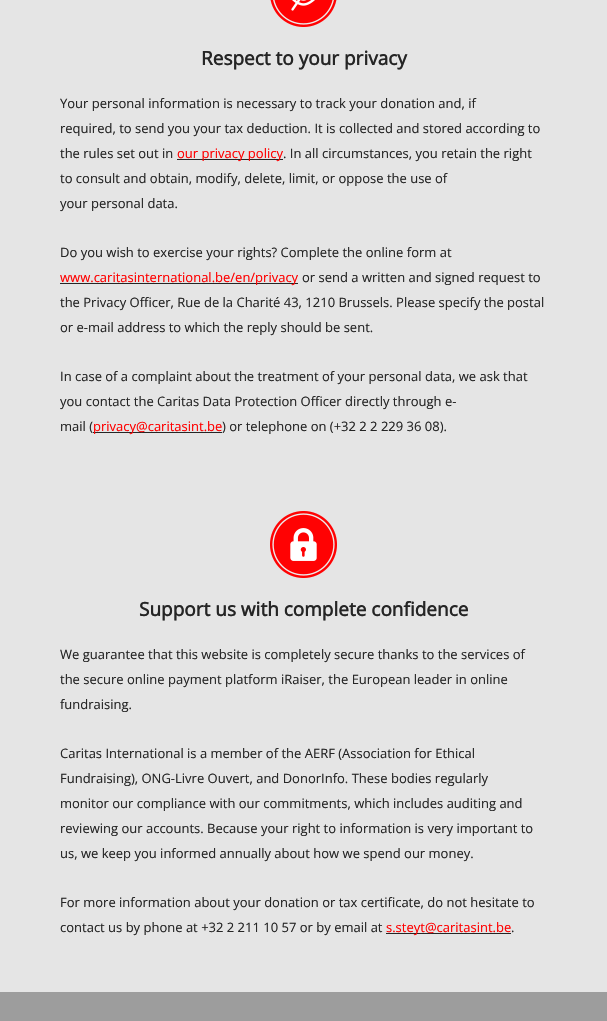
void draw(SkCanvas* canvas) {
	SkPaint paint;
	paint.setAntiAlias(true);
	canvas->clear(0xffe5e5e5);
	canvas->drawImageRect(SkImages::DeferredFromEncodedData(SkData::MakeFromFileName("img1.png")), SkRect::MakeXYWH(270, 0, 67, 27), SkSamplingOptions());
	SkFont f1(fontMgr->matchFamilyStyle("Open Sans", SkFontStyle::Bold()), 19);
	f1.setSubpixel(true);
	paint.setColor(0xff252525);
	canvas->drawString("Respect to your privacy", 201, 65, f1, paint);
	SkFont f2(fontMgr->matchFamilyStyle("Open Sans", SkFontStyle::Normal()), 13);
	f2.setSubpixel(true);
	canvas->drawString("Your personal information is necessary to track your donation and, if", 60, 108, f2, paint);
	canvas->drawString("required, to send you your tax deduction. It is collected and stored according to", 60, 133, f2, paint);
	canvas->drawString("the rules set out in", 60, 158, f2, paint);
	canvas->drawRect(SkRect::MakeXYWH(177, 159, 106, 1), paint);
	paint.setColor(0xffff0000);
	canvas->drawString("our privacy policy", 177, 158, f2, paint);
	paint.setColor(0xff252525);
	canvas->drawString(". In all circumstances, you retain the right", 283, 158, f2, paint);
	canvas->drawString("to consult and obtain, modify, delete, limit, or oppose the use of", 60, 183, f2, paint);
	canvas->drawString("your personal data.", 60, 208, f2, paint);
	canvas->drawString("Do you wish to exercise your rights? Complete the online form at", 60, 257, f2, paint);
	canvas->drawRect(SkRect::MakeXYWH(60, 283, 238, 1), paint);
	paint.setColor(0xffff0000);
	canvas->drawString("www.caritasinternational.be/en/privacy", 60, 282, f2, paint);
	paint.setColor(0xff252525);
	canvas->drawString("or send a written and signed request to", 302, 282, f2, paint);
	canvas->drawString("the Privacy Officer, Rue de la Charité 43, 1210 Brussels. Please specify the postal", 60, 307, f2, paint);
	canvas->drawString("or e-mail address to which the reply should be sent.", 60, 332, f2, paint);
	canvas->drawString("In case of a complaint about the treatment of your personal data, we ask that", 60, 381, f2, paint);
	canvas->drawString("you contact the Caritas Data Protection Officer directly through e-", 60, 406, f2, paint);
	canvas->drawString("mail (", 60, 431, f2, paint);
	canvas->drawRect(SkRect::MakeXYWH(93, 432, 129, 1), paint);
	paint.setColor(0xffff0000);
	canvas->drawString("privacy@caritasint.be", 93, 431, f2, paint);
	paint.setColor(0xff252525);
	canvas->drawString(") or telephone on (+32 2 2 229 36 08).", 222, 431, f2, paint);
	canvas->drawImageRect(SkImages::DeferredFromEncodedData(SkData::MakeFromFileName("img2.png")), SkRect::MakeXYWH(270, 511, 67, 67), SkSamplingOptions());
	canvas->drawString("Support us with complete confidence", 139, 616, f1, paint);
	canvas->drawString("We guarantee that this website is completely secure thanks to the services of", 60, 659, f2, paint);
	canvas->drawString("the secure online payment platform iRaiser, the European leader in online", 60, 684, f2, paint);
	canvas->drawString("fundraising.", 60, 709, f2, paint);
	canvas->drawString("Caritas International is a member of the AERF (Association for Ethical", 60, 758, f2, paint);
	canvas->drawString("Fundraising), ONG-Livre Ouvert, and DonorInfo. These bodies regularly", 60, 783, f2, paint);
	canvas->drawString("monitor our compliance with our commitments, which includes auditing and", 60, 808, f2, paint);
	canvas->drawString("reviewing our accounts. Because your right to information is very important to", 60, 833, f2, paint);
	canvas->drawString("us, we keep you informed annually about how we spend our money.", 60, 858, f2, paint);
	canvas->drawString("For more information about your donation or tax certificate, do not hesitate to", 60, 907, f2, paint);
	canvas->drawString("contact us by phone at +32 2 211 10 57 or by email at", 60, 932, f2, paint);
	canvas->drawRect(SkRect::MakeXYWH(386, 933, 125, 1), paint);
	paint.setColor(0xffff0000);
	canvas->drawString("s.steyt@caritasint.be", 386, 932, f2, paint);
	paint.setColor(0xff252525);
	canvas->drawString(".", 511, 932, f2, paint);
	paint.setColor(0xff9d9d9d);
	canvas->drawRect(SkRect::MakeXYWH(0, 992, 607, 29), paint);
}
